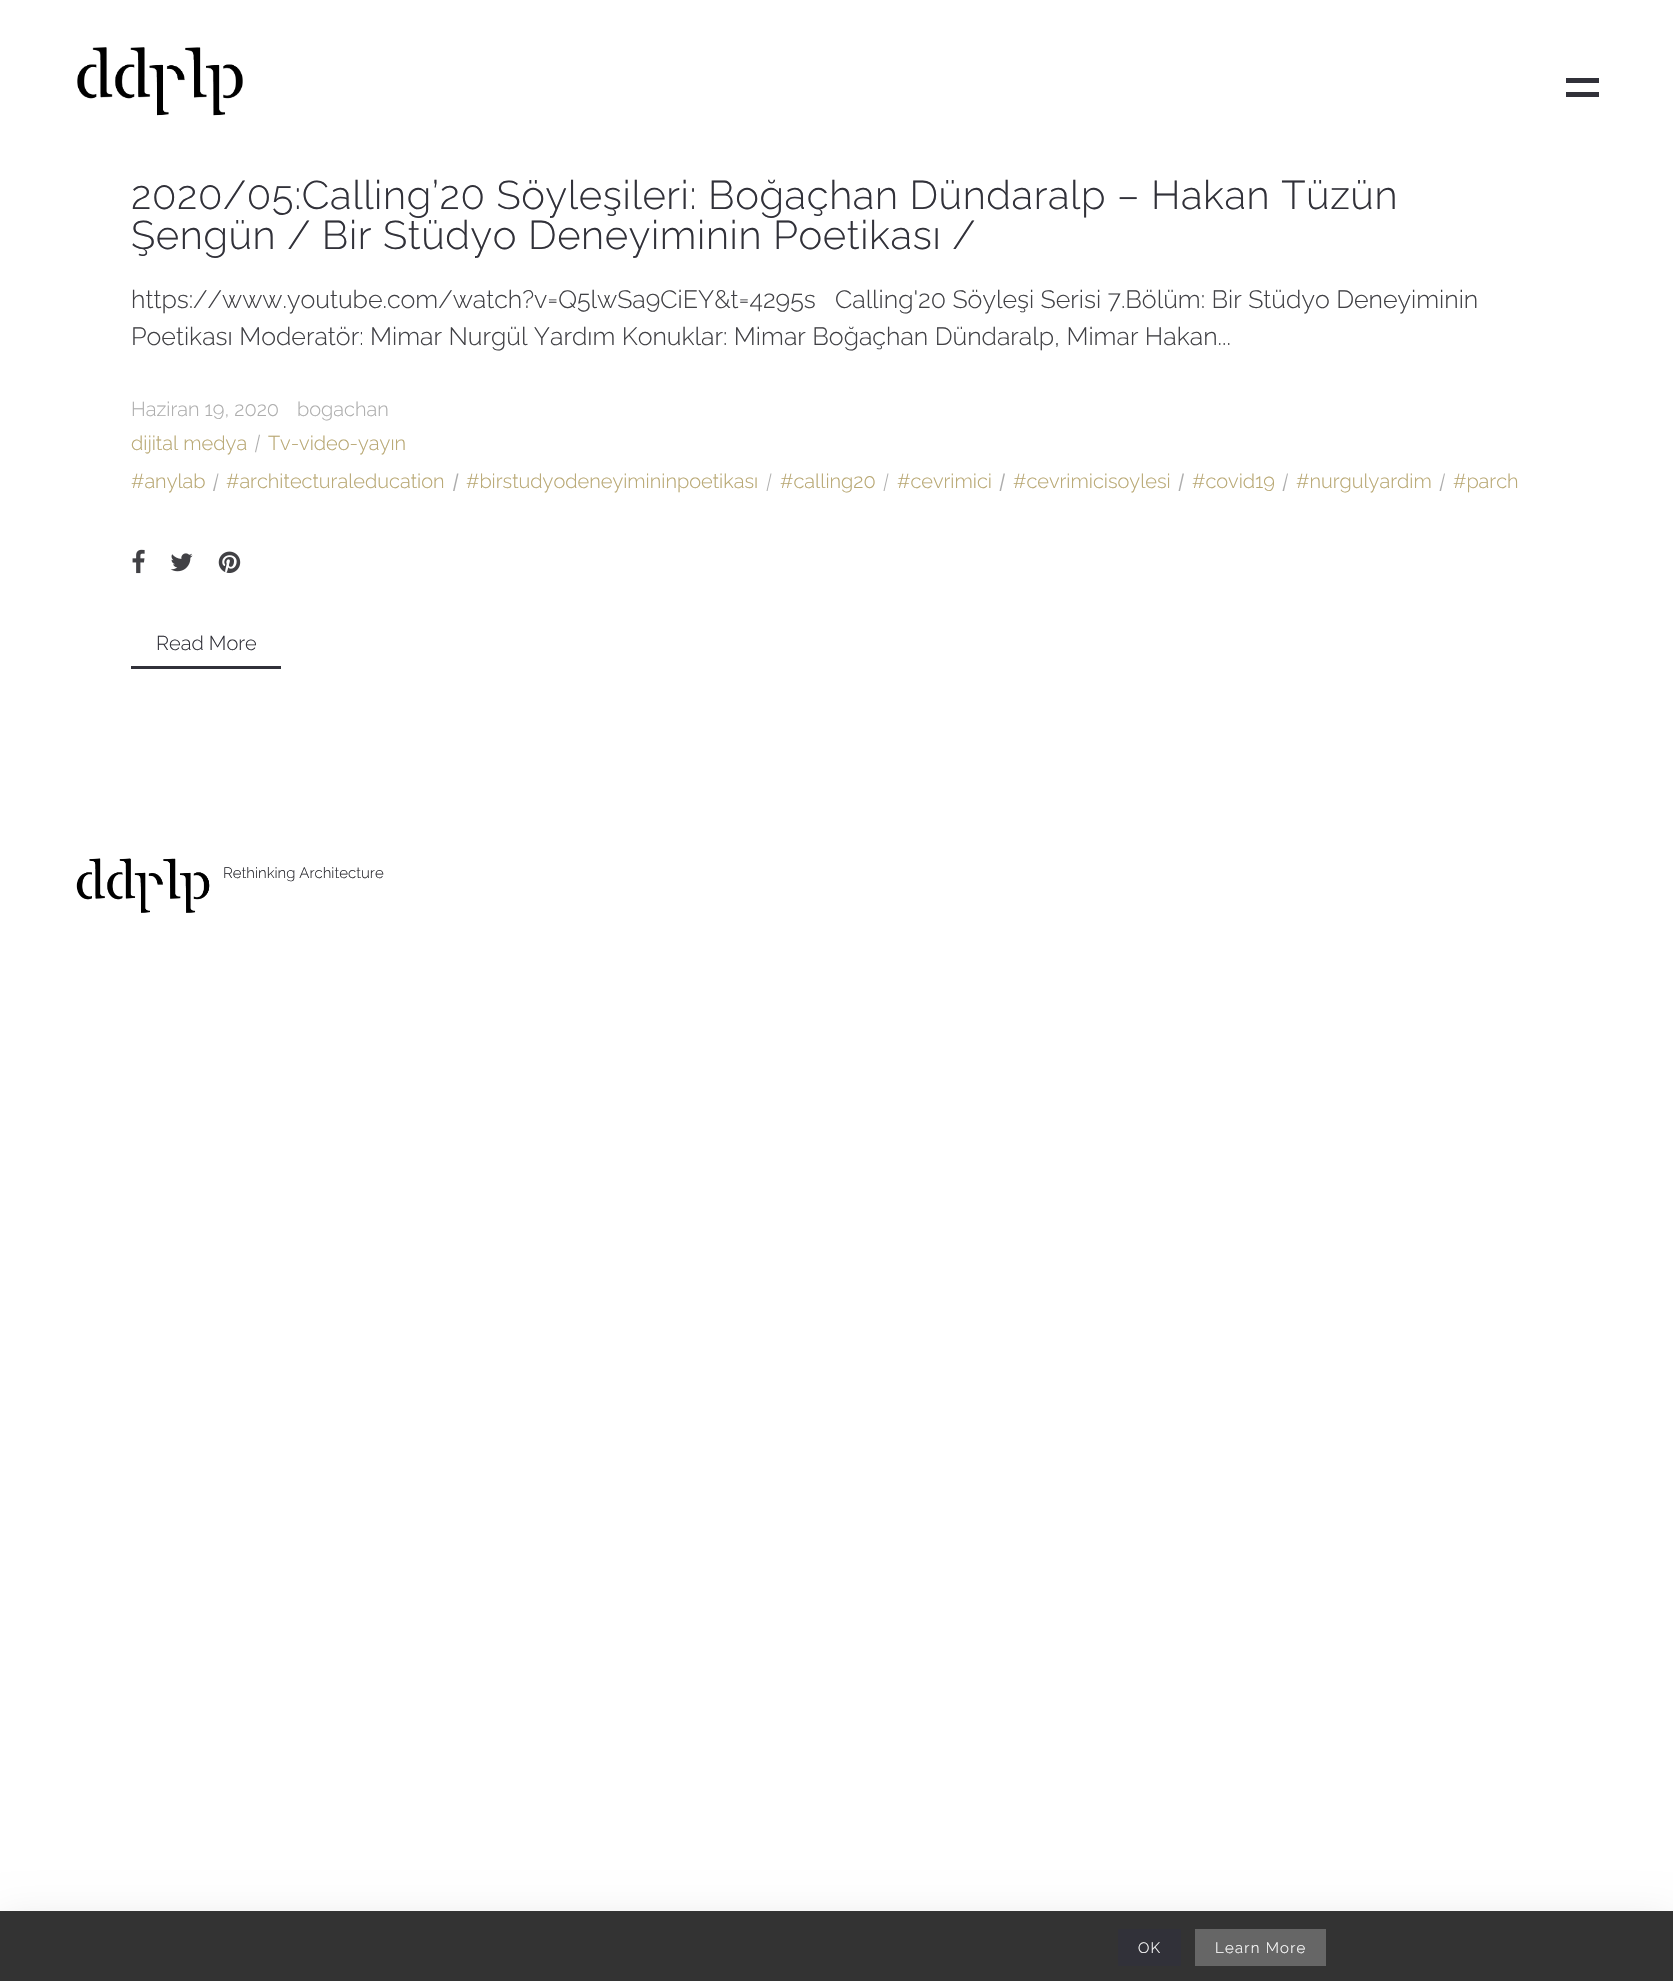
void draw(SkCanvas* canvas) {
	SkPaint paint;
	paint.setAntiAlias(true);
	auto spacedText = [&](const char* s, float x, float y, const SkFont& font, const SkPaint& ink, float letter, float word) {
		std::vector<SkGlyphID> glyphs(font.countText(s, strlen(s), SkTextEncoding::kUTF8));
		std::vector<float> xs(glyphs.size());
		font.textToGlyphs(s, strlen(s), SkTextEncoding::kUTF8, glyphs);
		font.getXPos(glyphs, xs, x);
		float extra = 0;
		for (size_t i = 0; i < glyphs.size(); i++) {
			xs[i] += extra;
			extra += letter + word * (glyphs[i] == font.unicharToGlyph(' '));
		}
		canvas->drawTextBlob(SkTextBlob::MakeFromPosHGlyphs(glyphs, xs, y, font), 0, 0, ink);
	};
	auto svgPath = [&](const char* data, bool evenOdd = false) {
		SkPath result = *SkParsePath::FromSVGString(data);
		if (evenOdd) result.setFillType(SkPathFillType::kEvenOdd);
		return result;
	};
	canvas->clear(0xffffffff);
	canvas->drawImageRect(SkImages::DeferredFromEncodedData(SkData::MakeFromFileName("img1.png")), SkRect::MakeXYWH(77, 47, 166, 69), SkSamplingOptions());
	paint.setColor(0xff313139);
	canvas->drawRect(SkRect::MakeXYWH(1566, 92, 33, 5), paint);
	canvas->drawRect(SkRect::MakeXYWH(1566, 78, 33, 5), paint);
	SkFont f1(fontMgr->matchFamilyStyle("Raleway", SkFontStyle(300, SkFontStyle::kNormal_Width, SkFontStyle::kUpright_Slant)), 40);
	f1.setSubpixel(true);
	spacedText("2020/05:Calling’20 Söyleşileri: Boğaçhan Dündaralp – Hakan Tüzün", 131, 209, f1, paint, 0.62, 0);
	spacedText("Şengün / Bir Stüdyo Deneyiminin Poetikası /", 131, 249, f1, paint, 0.62, 0);
	SkFont f2(fontMgr->matchFamilyStyle("Raleway", SkFontStyle(300, SkFontStyle::kNormal_Width, SkFontStyle::kUpright_Slant)), 25);
	f2.setSubpixel(true);
	paint.setColor(0xff414145);
	canvas->drawString("https://www.youtube.com/watch?v=Q5lwSa9CiEY&t=4295s   Calling'20 Söyleşi Serisi 7.Bölüm: Bir Stüdyo Deneyiminin", 131, 308, f2, paint);
	canvas->drawString("Poetikası Moderatör: Mimar Nurgül Yardım Konuklar: Mimar Boğaçhan Dündaralp, Mimar Hakan...", 131, 345, f2, paint);
	SkFont f3(fontMgr->matchFamilyStyle("Raleway", SkFontStyle(300, SkFontStyle::kNormal_Width, SkFontStyle::kUpright_Slant)), 20);
	f3.setSubpixel(true);
	paint.setColor(0xffadadad);
	canvas->drawString("Haziran 19, 2020", 131, 416, f3, paint);
	canvas->drawString("bogachan", 297, 416, f3, paint);
	paint.setColor(0xffb8a772);
	canvas->drawString("dijital medya", 131, 450, f3, paint);
	paint.setColor(0xffadadad);
	canvas->drawPath(svgPath("M259 434.5L260 435L256 452.5L255 452Z"), paint);
	paint.setColor(0xffb8a772);
	canvas->drawString("Tv-video-yayın", 268, 450, f3, paint);
	canvas->drawString("#anylab", 131, 488, f3, paint);
	paint.setColor(0xffadadad);
	canvas->drawPath(svgPath("M217.5 473.5H218.5L214.5 491H213Z"), paint);
	paint.setColor(0xffb8a772);
	canvas->drawString("#architecturaleducation", 226, 488, f3, paint);
	paint.setColor(0xffadadad);
	canvas->drawPath(svgPath("M457 473.5H458.5L454.5 491H453Z"), paint);
	paint.setColor(0xffb8a772);
	canvas->drawString("#birstudyodeneyimininpoetikası", 466, 488, f3, paint);
	paint.setColor(0xffadadad);
	canvas->drawPath(svgPath("M770.5 473.5H771.5L767.5 491H766.5Z"), paint);
	paint.setColor(0xffb8a772);
	canvas->drawString("#calling20", 780, 488, f3, paint);
	paint.setColor(0xffadadad);
	canvas->drawPath(svgPath("M887.5 473.5H888.5L884.5 491H883.5Z"), paint);
	paint.setColor(0xffb8a772);
	canvas->drawString("#cevrimici", 897, 488, f3, paint);
	paint.setColor(0xffadadad);
	canvas->drawPath(svgPath("M1003.5 473.5H1005L1001 491H999.5Z"), paint);
	paint.setColor(0xffb8a772);
	canvas->drawString("#cevrimicisoylesi", 1013, 488, f3, paint);
	paint.setColor(0xffadadad);
	canvas->drawPath(svgPath("M1182.5 473.5H1184L1180 491H1178.5Z"), paint);
	paint.setColor(0xffb8a772);
	canvas->drawString("#covid19", 1192, 488, f3, paint);
	paint.setColor(0xffadadad);
	canvas->drawPath(svgPath("M1287 473.5H1288L1284 491H1282.5Z"), paint);
	paint.setColor(0xffb8a772);
	canvas->drawString("#nurgulyardim", 1296, 488, f3, paint);
	paint.setColor(0xffadadad);
	canvas->drawPath(svgPath("M1444 473.5H1445L1441 491H1439.5Z"), paint);
	paint.setColor(0xffb8a772);
	canvas->drawString("#parch", 1453, 488, f3, paint);
	canvas->drawImageRect(SkImages::DeferredFromEncodedData(SkData::MakeFromFileName("img2.png")), SkRect::MakeXYWH(132, 549, 13, 25), SkSamplingOptions());
	canvas->drawImageRect(SkImages::DeferredFromEncodedData(SkData::MakeFromFileName("img3.png")), SkRect::MakeXYWH(170, 553, 23, 19), SkSamplingOptions());
	canvas->drawImageRect(SkImages::DeferredFromEncodedData(SkData::MakeFromFileName("img4.png")), SkRect::MakeXYWH(218, 551, 23, 22), SkSamplingOptions());
	paint.setColor(0xff313139);
	canvas->drawString("Read More", 156, 650, f3, paint);
	canvas->drawRect(SkRect::MakeXYWH(131, 666, 150, 3), paint);
	canvas->drawImageRect(SkImages::DeferredFromEncodedData(SkData::MakeFromFileName("img5.png")), SkRect::MakeXYWH(76, 858, 134, 55), SkSamplingOptions());
	SkFont f4(fontMgr->matchFamilyStyle("Raleway", SkFontStyle(300, SkFontStyle::kNormal_Width, SkFontStyle::kUpright_Slant)), 15);
	f4.setSubpixel(true);
	paint.setColor(0xff28282e);
	canvas->drawString("Rethinking Architecture", 223, 878, f4, paint);
	paint.setColor(0x1a000000);
	paint.setMaskFilter(SkMaskFilter::MakeBlur(kNormal_SkBlurStyle, 20.5));
	canvas->drawRect(SkRect::MakeXYWH(0, 1920, 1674, 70), paint);
	paint.setMaskFilter(nullptr);
	paint.setColor(0xff333333);
	canvas->drawRect(SkRect::MakeXYWH(0, 1911, 1673, 70), paint);
	paint.setColor(0xff313139);
	canvas->drawRect(SkRect::MakeXYWH(1118, 1929, 63, 37), paint);
	paint.setColor(0xffffffff);
	spacedText("OK", 1138, 1953, f4, paint, 1.25, 0);
	paint.setColor(0xff666666);
	canvas->drawRect(SkRect::MakeXYWH(1195, 1929, 131, 37), paint);
	paint.setColor(0xffffffff);
	spacedText("Learn More", 1215, 1953, f4, paint, 1.25, 0);
}
